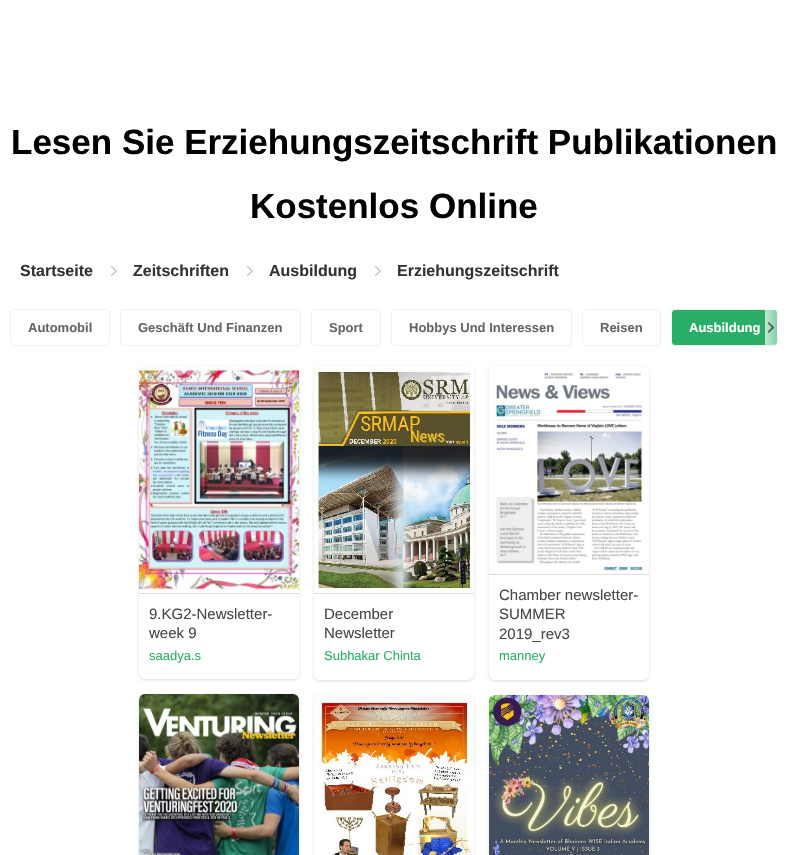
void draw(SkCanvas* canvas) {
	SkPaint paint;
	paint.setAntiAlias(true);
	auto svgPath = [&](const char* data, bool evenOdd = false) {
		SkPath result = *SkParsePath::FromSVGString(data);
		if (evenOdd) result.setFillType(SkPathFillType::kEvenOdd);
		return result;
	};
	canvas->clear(0xffffffff);
	SkFont f1(fontMgr->matchFamilyStyle("Liberation Sans", SkFontStyle::Bold()), 35);
	f1.setSubpixel(true);
	paint.setColor(0xff000000);
	canvas->drawString("Lesen Sie Erziehungszeitschrift Publikationen", 11, 154, f1, paint);
	canvas->drawString("Kostenlos Online", 250, 218, f1, paint);
	SkFont f2(fontMgr->matchFamilyStyle("Liberation Sans", SkFontStyle::Bold()), 16);
	f2.setSubpixel(true);
	paint.setColor(0xff333333);
	canvas->drawString("Startseite", 20, 276, f2, paint);
	canvas->drawImageRect(SkImages::DeferredFromEncodedData(SkData::MakeFromFileName("img1.png")), SkRect::MakeXYWH(111, 266, 6, 10), SkSamplingOptions());
	canvas->drawString("Zeitschriften", 133, 276, f2, paint);
	canvas->drawImageRect(SkImages::DeferredFromEncodedData(SkData::MakeFromFileName("img1.png")), SkRect::MakeXYWH(247, 266, 6, 10), SkSamplingOptions());
	canvas->drawString("Ausbildung", 269, 276, f2, paint);
	canvas->drawImageRect(SkImages::DeferredFromEncodedData(SkData::MakeFromFileName("img1.png")), SkRect::MakeXYWH(375, 266, 6, 10), SkSamplingOptions());
	canvas->drawString("Erziehungszeitschrift", 397, 276, f2, paint);
	paint.setStroke(true);
	paint.setStrokeWidth(1);
	paint.setColor(0xfff1f1f1);
	canvas->drawRoundRect(SkRect::MakeXYWH(10.5, 309.5, 99, 36), 3.5, 3.5, paint);
	SkFont f3(fontMgr->matchFamilyStyle("Liberation Sans", SkFontStyle::Bold()), 13);
	f3.setSubpixel(true);
	paint.setStroke(false);
	paint.setColor(0xff666666);
	canvas->drawString("Automobil", 28, 332, f3, paint);
	paint.setStroke(true);
	paint.setColor(0xfff1f1f1);
	canvas->drawRoundRect(SkRect::MakeXYWH(120.5, 309.5, 180, 36), 3.5, 3.5, paint);
	paint.setStroke(false);
	paint.setColor(0xff666666);
	canvas->drawString("Geschäft Und Finanzen", 138, 332, f3, paint);
	paint.setStroke(true);
	paint.setColor(0xfff1f1f1);
	canvas->drawRoundRect(SkRect::MakeXYWH(311.5, 309.5, 69, 36), 3.5, 3.5, paint);
	paint.setStroke(false);
	paint.setColor(0xff666666);
	canvas->drawString("Sport", 329, 332, f3, paint);
	paint.setStroke(true);
	paint.setColor(0xfff1f1f1);
	canvas->drawRoundRect(SkRect::MakeXYWH(391.5, 309.5, 180, 36), 3.5, 3.5, paint);
	paint.setStroke(false);
	paint.setColor(0xff666666);
	canvas->drawString("Hobbys Und Interessen", 409, 332, f3, paint);
	paint.setStroke(true);
	paint.setColor(0xfff1f1f1);
	canvas->drawRoundRect(SkRect::MakeXYWH(582.5, 309.5, 78, 36), 3.5, 3.5, paint);
	paint.setStroke(false);
	paint.setColor(0xff666666);
	canvas->drawString("Reisen", 600, 332, f3, paint);
	paint.setColor(0xff2aae67);
	canvas->drawRoundRect(SkRect::MakeXYWH(671.5, 309.5, 106, 36), 3.5, 3.5, paint);
	paint.setStroke(true);
	paint.setColor(0xfff1f1f1);
	canvas->drawRoundRect(SkRect::MakeXYWH(671.5, 309.5, 106, 36), 3.5, 3.5, paint);
	paint.setStroke(false);
	paint.setColor(0xffffffff);
	canvas->drawString("Ausbildung", 689, 332, f3, paint);
	{
		const SkColor colors[] = {0xb3ffffff, 0x66ffffff};
		const float stops[] = {0, 1};
		const SkPoint ends[] = {{765, 328}, {778, 328}};
		paint.setShader(SkGradientShader::MakeLinear(ends, colors, stops, 2, SkTileMode::kClamp));
		paint.setAlpha(255);
	}
	canvas->drawRect(SkRect::MakeXYWH(765, 309, 13, 37), paint);
	canvas->drawImageRect(SkImages::DeferredFromEncodedData(SkData::MakeFromFileName("img2.png")), SkRect::MakeXYWH(768, 322, 6, 11), SkSamplingOptions());
	canvas->save();
	canvas->clipPath(svgPath("M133 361H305V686H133ZM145 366H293C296.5 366 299 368.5 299 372V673C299 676.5 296.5 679 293 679H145C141.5 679 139 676.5 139 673V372C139 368.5 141.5 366 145 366Z", true), true);
	paint.setShader(nullptr);
	paint.setColor(0xffdddddd);
	paint.setMaskFilter(SkMaskFilter::MakeBlur(kNormal_SkBlurStyle, 1.5));
	canvas->drawRoundRect(SkRect::MakeXYWH(139, 367, 160, 313), 6, 6, paint);
	paint.setMaskFilter(nullptr);
	canvas->restore();
	canvas->drawImageRect(SkImages::DeferredFromEncodedData(SkData::MakeFromFileName("img3.png")), SkRect::MakeXYWH(139, 366, 160, 227), SkSamplingOptions());
	canvas->drawRect(SkRect::MakeXYWH(139, 593, 160, 1), paint);
	SkFont f4(fontMgr->matchFamilyStyle("Liberation Sans", SkFontStyle::Normal()), 15);
	f4.setSubpixel(true);
	paint.setColor(0xff474747);
	canvas->drawString("9.KG2-Newsletter-", 149, 619, f4, paint);
	canvas->drawString("week 9", 149, 638, f4, paint);
	SkFont f5(fontMgr->matchFamilyStyle("Liberation Sans", SkFontStyle::Normal()), 13);
	f5.setSubpixel(true);
	paint.setColor(0xff2aae67);
	canvas->drawString("saadya.s", 149, 660, f5, paint);
	canvas->save();
	canvas->clipPath(svgPath("M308 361H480V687H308ZM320 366H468C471.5 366 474 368.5 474 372V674C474 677.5 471.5 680 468 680H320C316.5 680 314 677.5 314 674V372C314 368.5 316.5 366 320 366Z", true), true);
	paint.setColor(0xffdddddd);
	paint.setMaskFilter(SkMaskFilter::MakeBlur(kNormal_SkBlurStyle, 1.5));
	canvas->drawRoundRect(SkRect::MakeXYWH(314, 367, 160, 314), 6, 6, paint);
	paint.setMaskFilter(nullptr);
	canvas->restore();
	canvas->drawImageRect(SkImages::DeferredFromEncodedData(SkData::MakeFromFileName("img4.png")), SkRect::MakeXYWH(314, 366, 160, 227), SkSamplingOptions());
	canvas->drawRect(SkRect::MakeXYWH(314, 593, 160, 1), paint);
	paint.setColor(0xff474747);
	canvas->drawString("December", 324, 619, f4, paint);
	canvas->drawString("Newsletter", 324, 638, f4, paint);
	paint.setColor(0xff2aae67);
	canvas->drawString("Subhakar Chinta", 324, 660, f5, paint);
	canvas->save();
	canvas->clipPath(svgPath("M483 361H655V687H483ZM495 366H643C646.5 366 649 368.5 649 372V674C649 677.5 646.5 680 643 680H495C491.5 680 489 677.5 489 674V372C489 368.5 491.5 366 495 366Z", true), true);
	paint.setColor(0xffdddddd);
	paint.setMaskFilter(SkMaskFilter::MakeBlur(kNormal_SkBlurStyle, 1.5));
	canvas->drawRoundRect(SkRect::MakeXYWH(489, 367, 160, 314), 6, 6, paint);
	paint.setMaskFilter(nullptr);
	canvas->restore();
	canvas->drawImageRect(SkImages::DeferredFromEncodedData(SkData::MakeFromFileName("img5.png")), SkRect::MakeXYWH(496, 373, 151, 201), SkSamplingOptions());
	canvas->drawRect(SkRect::MakeXYWH(489, 574, 160, 1), paint);
	paint.setColor(0xff474747);
	canvas->drawString("Chamber newsletter-", 499, 600, f4, paint);
	canvas->drawString("SUMMER", 499, 619, f4, paint);
	canvas->drawString("2019_rev3", 499, 639, f4, paint);
	paint.setColor(0xff2aae67);
	canvas->drawString("manney", 499, 660, f5, paint);
	paint.setColor(0xffdddddd);
	paint.setMaskFilter(SkMaskFilter::MakeBlur(kNormal_SkBlurStyle, 1.5));
	canvas->drawRoundRect(SkRect::MakeXYWH(139, 695, 160, 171), 6, 6, paint);
	paint.setMaskFilter(nullptr);
	canvas->drawImageRect(SkImages::DeferredFromEncodedData(SkData::MakeFromFileName("img6.png")), SkRect::MakeXYWH(139, 694, 160, 161), SkSamplingOptions());
	paint.setMaskFilter(SkMaskFilter::MakeBlur(kNormal_SkBlurStyle, 1.5));
	canvas->drawRoundRect(SkRect::MakeXYWH(314, 696, 160, 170), 6, 6, paint);
	paint.setMaskFilter(nullptr);
	canvas->drawImageRect(SkImages::DeferredFromEncodedData(SkData::MakeFromFileName("img7.png")), SkRect::MakeXYWH(314, 695, 160, 160), SkSamplingOptions());
	paint.setMaskFilter(SkMaskFilter::MakeBlur(kNormal_SkBlurStyle, 1.5));
	canvas->drawRoundRect(SkRect::MakeXYWH(489, 696, 160, 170), 6, 6, paint);
	paint.setMaskFilter(nullptr);
	canvas->drawImageRect(SkImages::DeferredFromEncodedData(SkData::MakeFromFileName("img8.png")), SkRect::MakeXYWH(489, 695, 160, 160), SkSamplingOptions());
}
